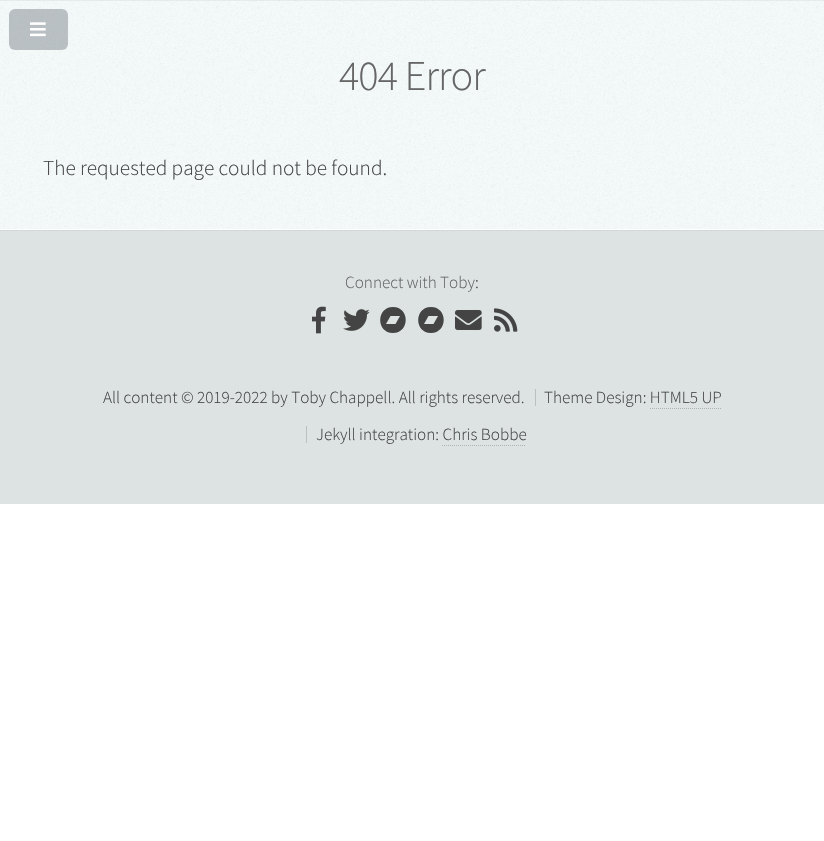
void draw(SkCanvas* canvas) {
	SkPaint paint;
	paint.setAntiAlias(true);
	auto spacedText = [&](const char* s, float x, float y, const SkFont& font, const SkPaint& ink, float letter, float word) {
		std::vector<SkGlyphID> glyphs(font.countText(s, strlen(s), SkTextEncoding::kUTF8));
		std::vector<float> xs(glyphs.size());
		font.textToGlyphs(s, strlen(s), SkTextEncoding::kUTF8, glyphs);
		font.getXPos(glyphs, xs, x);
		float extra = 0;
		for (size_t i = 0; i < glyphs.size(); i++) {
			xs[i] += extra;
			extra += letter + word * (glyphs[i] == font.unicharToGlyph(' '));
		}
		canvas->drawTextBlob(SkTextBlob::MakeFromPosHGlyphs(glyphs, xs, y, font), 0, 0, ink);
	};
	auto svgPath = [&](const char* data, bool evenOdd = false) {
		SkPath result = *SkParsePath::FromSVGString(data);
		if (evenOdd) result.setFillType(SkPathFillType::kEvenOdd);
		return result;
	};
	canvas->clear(0xffffffff);
	paint.setColor(0xfff5fafa);
	canvas->drawRect(SkRect::MakeXYWH(0, 0, 824, 229), paint);
	canvas->drawImageRect(SkImages::DeferredFromEncodedData(SkData::MakeFromFileName("img2.png")), SkRect::MakeXYWH(0, 0, 824, 229), SkSamplingOptions());
	paint.setColor(0x80808890);
	canvas->drawRoundRect(SkRect::MakeXYWH(9, 9, 59, 41), 6, 6, paint);
	canvas->drawImageRect(SkImages::DeferredFromEncodedData(SkData::MakeFromFileName("img1.png")), SkRect::MakeXYWH(30, 22, 16, 15), SkSamplingOptions());
	paint.setColor(0x0d000000);
	canvas->drawRect(SkRect::MakeXYWH(0, 0, 824, 1), paint);
	SkFont f1(fontMgr->matchFamilyStyle("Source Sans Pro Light", SkFontStyle(300, SkFontStyle::kNormal_Width, SkFontStyle::kUpright_Slant)), 42.5);
	f1.setSubpixel(true);
	paint.setColor(0xff666666);
	spacedText("404 Error", 339, 90, f1, paint, -1, 0);
	SkFont f2(fontMgr->matchFamilyStyle("Source Sans Pro Light", SkFontStyle(300, SkFontStyle::kNormal_Width, SkFontStyle::kUpright_Slant)), 21.3);
	f2.setSubpixel(true);
	paint.setColor(0xff444444);
	canvas->drawString("The requested page could not be found.", 43, 175, f2, paint);
	paint.setColor(0xffdce3e2);
	canvas->drawRect(SkRect::MakeXYWH(0, 231, 824, 273), paint);
	paint.setColor(0xffd1d8d7);
	canvas->drawRect(SkRect::MakeXYWH(0, 230, 824, 1), paint);
	SkFont f3(fontMgr->matchFamilyStyle("Source Sans Pro Light", SkFontStyle(300, SkFontStyle::kNormal_Width, SkFontStyle::kUpright_Slant)), 17.1);
	f3.setSubpixel(true);
	paint.setColor(0xff666666);
	canvas->drawString("Connect with Toby", 345, 288, f3, paint);
	paint.setColor(0xff444444);
	canvas->drawString(":", 475, 288, f3, paint);
	canvas->drawImageRect(SkImages::DeferredFromEncodedData(SkData::MakeFromFileName("img3.png")), SkRect::MakeXYWH(312, 306, 14, 28), SkSamplingOptions());
	canvas->drawImageRect(SkImages::DeferredFromEncodedData(SkData::MakeFromFileName("img4.png")), SkRect::MakeXYWH(343, 309, 27, 22), SkSamplingOptions());
	canvas->drawPath(svgPath("M393 307C376 307 376 333 393 333C410 333 410 307 393 307ZM395.5 324H386L390.5 316H400Z"), paint);
	canvas->drawPath(svgPath("M431 307C414 307 414 333 431 333C448 333 448 307 431 307ZM433.5 324H424L428.5 316H438Z"), paint);
	canvas->drawImageRect(SkImages::DeferredFromEncodedData(SkData::MakeFromFileName("img5.png")), SkRect::MakeXYWH(455, 310, 27, 20), SkSamplingOptions());
	canvas->drawImageRect(SkImages::DeferredFromEncodedData(SkData::MakeFromFileName("img6.png")), SkRect::MakeXYWH(494, 308, 24, 24), SkSamplingOptions());
	canvas->drawString("All content © 2019-2022 by Toby Chappell. All rights reserved.", 103, 403, f3, paint);
	paint.setColor(0xffbcc0c0);
	canvas->drawRect(SkRect::MakeXYWH(535, 389, 1, 17), paint);
	paint.setColor(0xff444444);
	canvas->drawString("Theme Design: HTML5 UP", 544, 403, f3, paint);
	paint.setStroke(true);
	paint.setStrokeWidth(1);
	paint.setColor(0xffaeb2b1);
	paint.setPathEffect(SkDashPathEffect::Make({{1, 1}}, 0));
	canvas->drawPath(svgPath("M650 408.5H721"), paint);
	paint.setPathEffect(nullptr);
	paint.setStroke(false);
	paint.setColor(0xffbcc0c0);
	canvas->drawRect(SkRect::MakeXYWH(306, 426, 1, 17), paint);
	paint.setColor(0xff444444);
	canvas->drawString("Jekyll integration: Chris Bobbe", 316, 440, f3, paint);
	paint.setStroke(true);
	paint.setColor(0xffaeb2b1);
	paint.setPathEffect(SkDashPathEffect::Make({{1, 1}}, 0));
	canvas->drawPath(svgPath("M442 445.5H526"), paint);
	paint.setPathEffect(nullptr);
}
